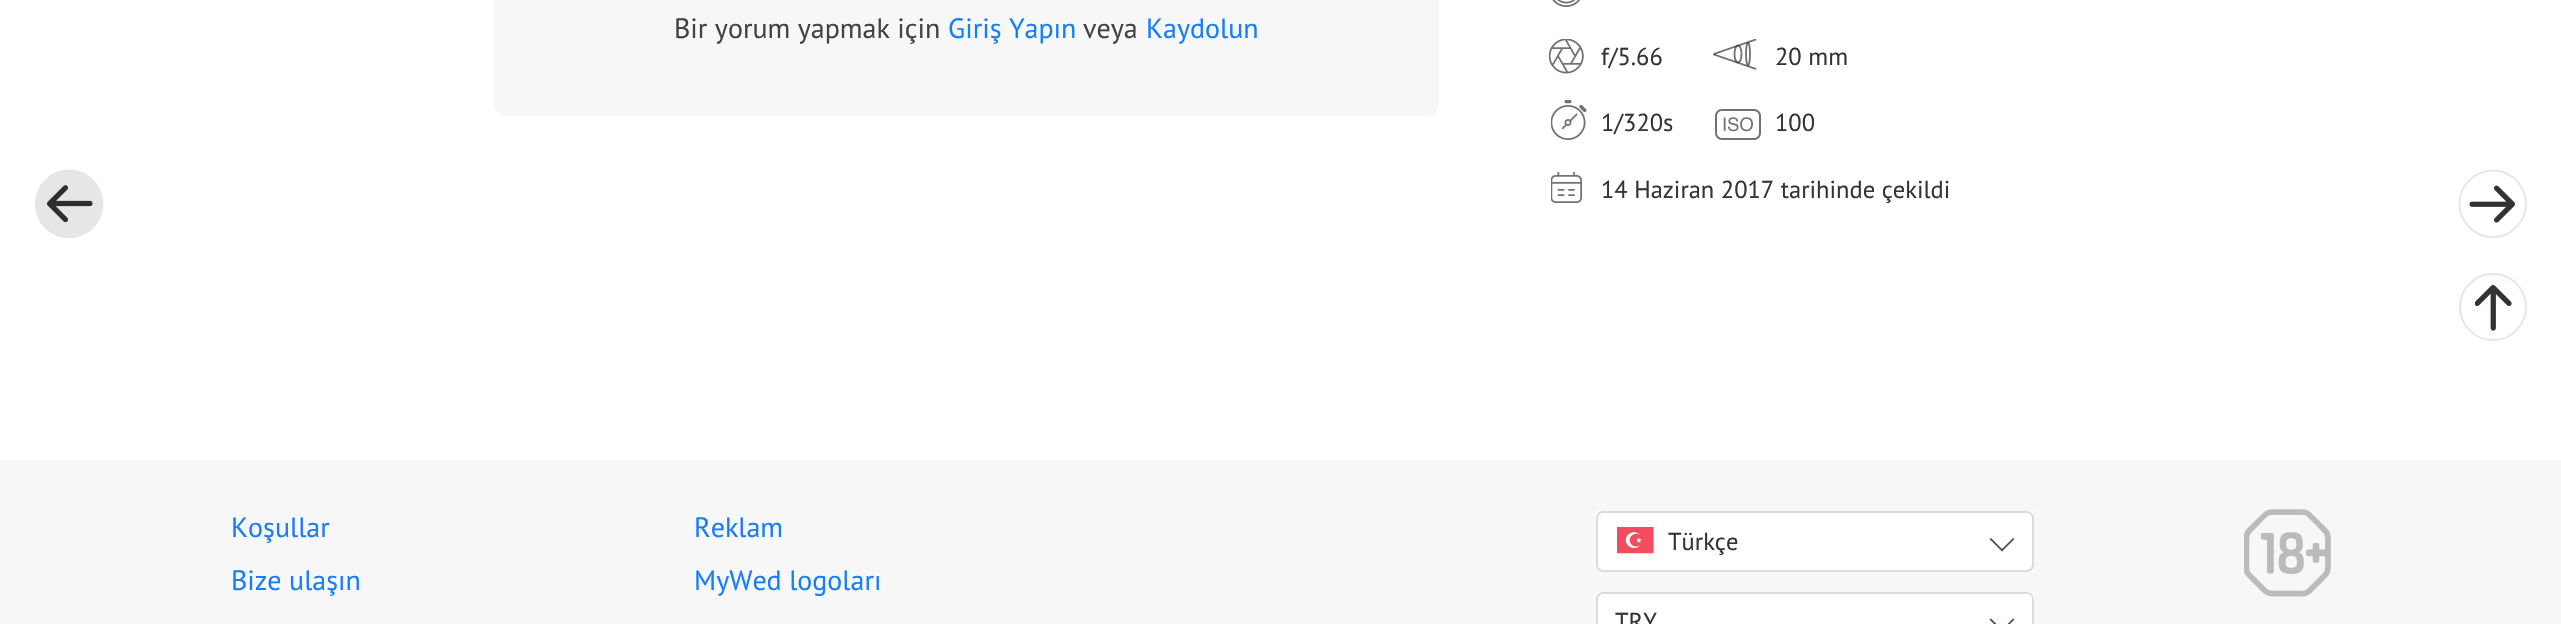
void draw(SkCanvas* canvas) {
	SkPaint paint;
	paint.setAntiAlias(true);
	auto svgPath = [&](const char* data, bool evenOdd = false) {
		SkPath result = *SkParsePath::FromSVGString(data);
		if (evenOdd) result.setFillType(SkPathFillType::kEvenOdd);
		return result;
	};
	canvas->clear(0xffffffff);
	paint.setColor(0xffe6e6e6);
	canvas->drawPath(svgPath("M35 204C35 185 50 170 69 170C88 170 103 185 103 204C103 223 88 238 69 238C50 238 35 223 35 204Z"), paint);
	paint.setStroke(true);
	paint.setStrokeWidth(1.8);
	canvas->drawPath(svgPath("M36 204C36 185.5 51 170.5 69 170.5C87.5 170.5 102.5 185.5 102.5 204C102.5 222 87.5 237 69 237C51 237 36 222 36 204Z"), paint);
	canvas->drawImageRect(SkImages::DeferredFromEncodedData(SkData::MakeFromFileName("img1.png")), SkRect::MakeXYWH(47, 185, 46, 38), SkSamplingOptions());
	paint.setStroke(false);
	paint.setColor(0xfff7f7f7);
	canvas->drawRoundRect(SkRect::MakeXYWH(494, -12, 945, 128), 12, 12, paint);
	SkFont f1(fontMgr->matchFamilyStyle("PT Sans", SkFontStyle::Normal()), 28);
	f1.setSubpixel(true);
	paint.setColor(0xff434343);
	canvas->drawString("Bir yorum yapmak için", 674, 38, f1, paint);
	paint.setColor(0xff157efb);
	canvas->drawString("Giriş Yapın", 948, 38, f1, paint);
	paint.setColor(0xff434343);
	canvas->drawString("veya", 1083, 38, f1, paint);
	paint.setColor(0xff157efb);
	canvas->drawString("Kaydolun", 1146, 38, f1, paint);
	canvas->drawImageRect(SkImages::DeferredFromEncodedData(SkData::MakeFromFileName("img2.png")), SkRect::MakeXYWH(1552, 0, 29, 7), SkSamplingOptions());
	canvas->drawImageRect(SkImages::DeferredFromEncodedData(SkData::MakeFromFileName("img3.png")), SkRect::MakeXYWH(1549, 39, 35, 35), SkSamplingOptions());
	SkFont f2(fontMgr->matchFamilyStyle("PT Sans", SkFontStyle::Normal()), 24.5);
	f2.setSubpixel(true);
	paint.setColor(0xff343434);
	canvas->drawString("f/5.66", 1601, 65, f2, paint);
	canvas->drawImageRect(SkImages::DeferredFromEncodedData(SkData::MakeFromFileName("img4.png")), SkRect::MakeXYWH(1713, 39, 44, 31), SkSamplingOptions());
	canvas->drawString("20 mm", 1775, 65, f2, paint);
	canvas->drawImageRect(SkImages::DeferredFromEncodedData(SkData::MakeFromFileName("img5.png")), SkRect::MakeXYWH(1551, 100, 36, 40), SkSamplingOptions());
	canvas->drawString("1/320s", 1601, 131, f2, paint);
	canvas->drawImageRect(SkImages::DeferredFromEncodedData(SkData::MakeFromFileName("img6.png")), SkRect::MakeXYWH(1715, 109, 46, 31), SkSamplingOptions());
	canvas->drawString("100", 1775, 131, f2, paint);
	canvas->drawImageRect(SkImages::DeferredFromEncodedData(SkData::MakeFromFileName("img7.png")), SkRect::MakeXYWH(1551, 172, 31, 31), SkSamplingOptions());
	canvas->drawString("14 Haziran 2017 tarihinde çekildi", 1601, 198, f2, paint);
	paint.setStroke(true);
	paint.setColor(0xffe6e6e6);
	canvas->drawPath(svgPath("M2526 204C2526 222 2511 237 2493 237C2474.5 237 2459.5 222 2459.5 204C2459.5 185.5 2474.5 170.5 2493 170.5C2511 170.5 2526 185.5 2526 204Z"), paint);
	canvas->drawImageRect(SkImages::DeferredFromEncodedData(SkData::MakeFromFileName("img8.png")), SkRect::MakeXYWH(2469, 185, 46, 38), SkSamplingOptions());
	paint.setStrokeWidth(2);
	canvas->drawCircle(2493, 307, 33, paint);
	canvas->drawImageRect(SkImages::DeferredFromEncodedData(SkData::MakeFromFileName("img9.png")), SkRect::MakeXYWH(2475, 285, 37, 46), SkSamplingOptions());
	paint.setStroke(false);
	paint.setColor(0xfff7f7f7);
	canvas->drawRect(SkRect::MakeXYWH(0, 460, 2561, 164), paint);
	paint.setColor(0xff157efb);
	canvas->drawString("Koşullar", 231, 537, f1, paint);
	canvas->drawString("Reklam", 694, 537, f1, paint);
	canvas->drawString("Bize ulaşın", 231, 590, f1, paint);
	canvas->drawString("MyWed logoları", 694, 590, f1, paint);
	paint.setColor(0xffffffff);
	canvas->drawRect(SkRect::MakeXYWH(1596, 511, 438, 61), paint);
	paint.setStroke(true);
	paint.setColor(0xffdbdbdb);
	canvas->drawRoundRect(SkRect::MakeXYWH(1597, 512, 436, 59), 6, 6, paint);
	canvas->drawImageRect(SkImages::DeferredFromEncodedData(SkData::MakeFromFileName("img10.png")), SkRect::MakeXYWH(1617, 527, 37, 27), SkSamplingOptions());
	paint.setStroke(false);
	paint.setColor(0xff343434);
	canvas->drawString("Türkçe", 1668, 550, f2, paint);
	paint.setColor(0xff4e4e4e);
	canvas->drawPath(svgPath("M2001 550L2013 538L2014.5 539L2002 551.5Z"), paint);
	canvas->drawPath(svgPath("M1989.5 539L1991 538L2003 550L2002 551.5Z"), paint);
	paint.setColor(0xffffffff);
	canvas->drawRect(SkRect::MakeXYWH(1596, 592, 438, 7), paint);
	canvas->drawRoundRect(SkRect::MakeXYWH(1597, 593, 436, 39), 6, 6, paint);
	paint.setStroke(true);
	paint.setColor(0xffdbdbdb);
	canvas->drawRoundRect(SkRect::MakeXYWH(1597, 593, 436, 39), 6, 6, paint);
	paint.setStroke(false);
	paint.setColor(0xff343434);
	canvas->drawString("TRY", 1615, 630, f2, paint);
	paint.setColor(0xff4e4e4e);
	canvas->drawPath(svgPath("M2001 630.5L2013 618.5L2014.5 619.5L2002 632ZM1989.5 619.5L1991 618.5L2003 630.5L2002 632Z"), paint);
	canvas->drawImageRect(SkImages::DeferredFromEncodedData(SkData::MakeFromFileName("img11.png")), SkRect::MakeXYWH(2244, 509, 87, 88), SkSamplingOptions());
}
